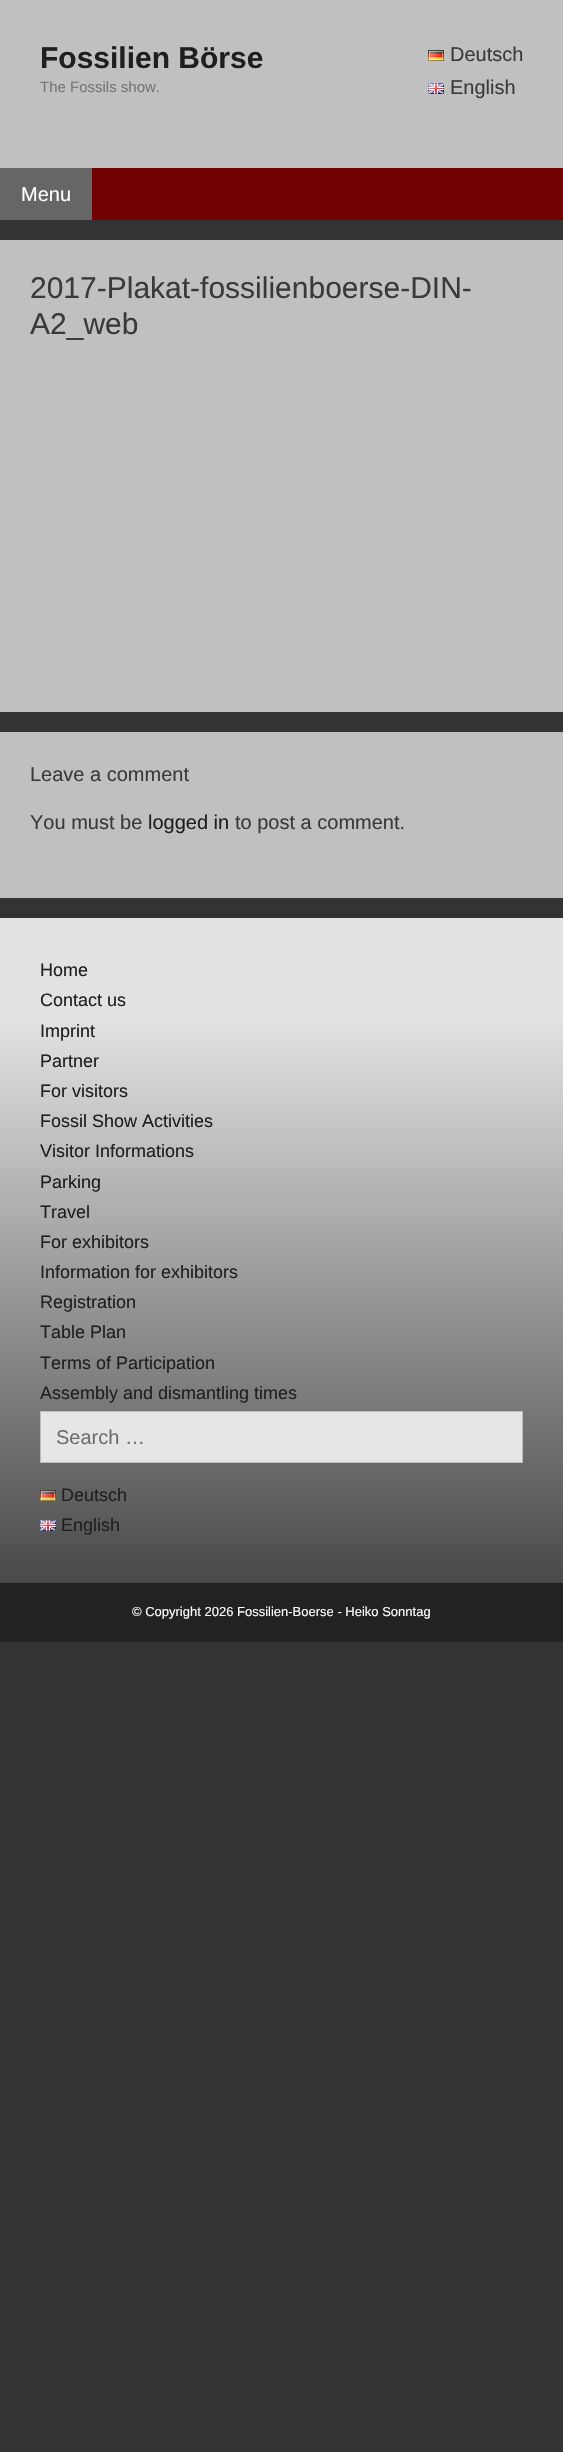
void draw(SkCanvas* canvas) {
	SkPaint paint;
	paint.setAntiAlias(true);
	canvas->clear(0xff333333);
	paint.setColor(0xffc0c0c0);
	canvas->drawRect(SkRect::MakeXYWH(0, 0, 563, 168), paint);
	SkFont f1(fontMgr->matchFamilyStyle("Liberation Sans", SkFontStyle::Bold()), 30);
	f1.setSubpixel(true);
	paint.setColor(0xff1f1f1f);
	canvas->drawString("Fossilien Börse", 40, 68, f1, paint);
	SkFont f2(fontMgr->matchFamilyStyle("Liberation Sans", SkFontStyle::Normal()), 15);
	f2.setSubpixel(true);
	paint.setColor(0xff757575);
	canvas->drawString("The Fossils show.", 40, 92, f2, paint);
	canvas->drawImageRect(SkImages::DeferredFromEncodedData(SkData::MakeFromFileName("img1.png")), SkRect::MakeXYWH(428, 50, 16, 11), SkSamplingOptions());
	SkFont f3(fontMgr->matchFamilyStyle("Liberation Sans", SkFontStyle::Normal()), 20);
	f3.setSubpixel(true);
	paint.setColor(0xff3a3a3a);
	canvas->drawString("Deutsch", 450, 61, f3, paint);
	canvas->drawImageRect(SkImages::DeferredFromEncodedData(SkData::MakeFromFileName("img2.png")), SkRect::MakeXYWH(428, 83, 16, 11), SkSamplingOptions());
	canvas->drawString("English", 450, 94, f3, paint);
	paint.setColor(0xff710000);
	canvas->drawRect(SkRect::MakeXYWH(92, 168, 471, 52), paint);
	paint.setColor(0xff666666);
	canvas->drawRect(SkRect::MakeXYWH(0, 168, 92, 52), paint);
	paint.setColor(0xffffffff);
	canvas->drawString("Menu", 21, 201, f3, paint);
	paint.setColor(0xffc0c0c0);
	canvas->drawRect(SkRect::MakeXYWH(0, 240, 563, 472), paint);
	SkFont f4(fontMgr->matchFamilyStyle("Liberation Sans", SkFontStyle::Normal()), 30);
	f4.setSubpixel(true);
	paint.setColor(0xff3a3a3a);
	canvas->drawString("2017-Plakat-fossilienboerse-DIN-", 30, 298, f4, paint);
	canvas->drawString("A2_web", 30, 334, f4, paint);
	paint.setColor(0xffc0c0c0);
	canvas->drawRect(SkRect::MakeXYWH(0, 732, 563, 166), paint);
	paint.setColor(0xff3a3a3a);
	canvas->drawString("Leave a comment", 30, 781, f3, paint);
	canvas->drawString("You must be", 30, 829, f3, paint);
	paint.setColor(0xff1f1f1f);
	canvas->drawString("logged in", 148, 829, f3, paint);
	paint.setColor(0xff3a3a3a);
	canvas->drawString("to post a comment.", 235, 829, f3, paint);
	{
		const SkColor colors[] = {0xff494949, 0xffe2e2e2};
		const float stops[] = {0, 0.85};
		const SkPoint ends[] = {{282, 1583}, {282, 918}};
		paint.setShader(SkGradientShader::MakeLinear(ends, colors, stops, 2, SkTileMode::kClamp));
		paint.setAlpha(255);
	}
	canvas->drawRect(SkRect::MakeXYWH(0, 918, 563, 665), paint);
	SkFont f5(fontMgr->matchFamilyStyle("Liberation Sans", SkFontStyle::Normal()), 18);
	f5.setSubpixel(true);
	paint.setShader(nullptr);
	paint.setColor(0xff1f1f1f);
	canvas->drawString("Home", 40, 976, f5, paint);
	canvas->drawString("Contact us", 40, 1006, f5, paint);
	canvas->drawString("Imprint", 40, 1037, f5, paint);
	canvas->drawString("Partner", 40, 1067, f5, paint);
	canvas->drawString("For visitors", 40, 1097, f5, paint);
	canvas->drawString("Fossil Show Activities", 40, 1127, f5, paint);
	canvas->drawString("Visitor Informations", 40, 1157, f5, paint);
	canvas->drawString("Parking", 40, 1188, f5, paint);
	canvas->drawString("Travel", 40, 1218, f5, paint);
	canvas->drawString("For exhibitors", 40, 1248, f5, paint);
	canvas->drawString("Information for exhibitors", 40, 1278, f5, paint);
	canvas->drawString("Registration", 40, 1308, f5, paint);
	canvas->drawString("Table Plan", 40, 1338, f5, paint);
	canvas->drawString("Terms of Participation", 40, 1369, f5, paint);
	canvas->drawString("Assembly and dismantling times", 40, 1399, f5, paint);
	paint.setColor(0xffe6e6e6);
	canvas->drawRect(SkRect::MakeXYWH(40.5, 1411.5, 482, 51), paint);
	paint.setStroke(true);
	paint.setStrokeWidth(1);
	paint.setColor(0xffbdbdbd);
	canvas->drawRect(SkRect::MakeXYWH(40.5, 1411.5, 482, 51), paint);
	paint.setStroke(false);
	paint.setColor(0xff6e6e6e);
	canvas->drawString("Search …", 56, 1444, f3, paint);
	canvas->drawImageRect(SkImages::DeferredFromEncodedData(SkData::MakeFromFileName("img3.png")), SkRect::MakeXYWH(40, 1490, 16, 11), SkSamplingOptions());
	paint.setColor(0xff1f1f1f);
	canvas->drawString("Deutsch", 61, 1501, f5, paint);
	canvas->drawImageRect(SkImages::DeferredFromEncodedData(SkData::MakeFromFileName("img4.png")), SkRect::MakeXYWH(40, 1520, 16, 11), SkSamplingOptions());
	canvas->drawString("English", 61, 1531, f5, paint);
	paint.setColor(0xff222222);
	canvas->drawRect(SkRect::MakeXYWH(0, 1583, 563, 59), paint);
	SkFont f6(fontMgr->matchFamilyStyle("Liberation Sans", SkFontStyle::Normal()), 13);
	f6.setSubpixel(true);
	paint.setColor(0xffffffff);
	canvas->drawString("© Copyright 2026 Fossilien-Boerse - Heiko Sonntag", 132, 1616, f6, paint);
}
